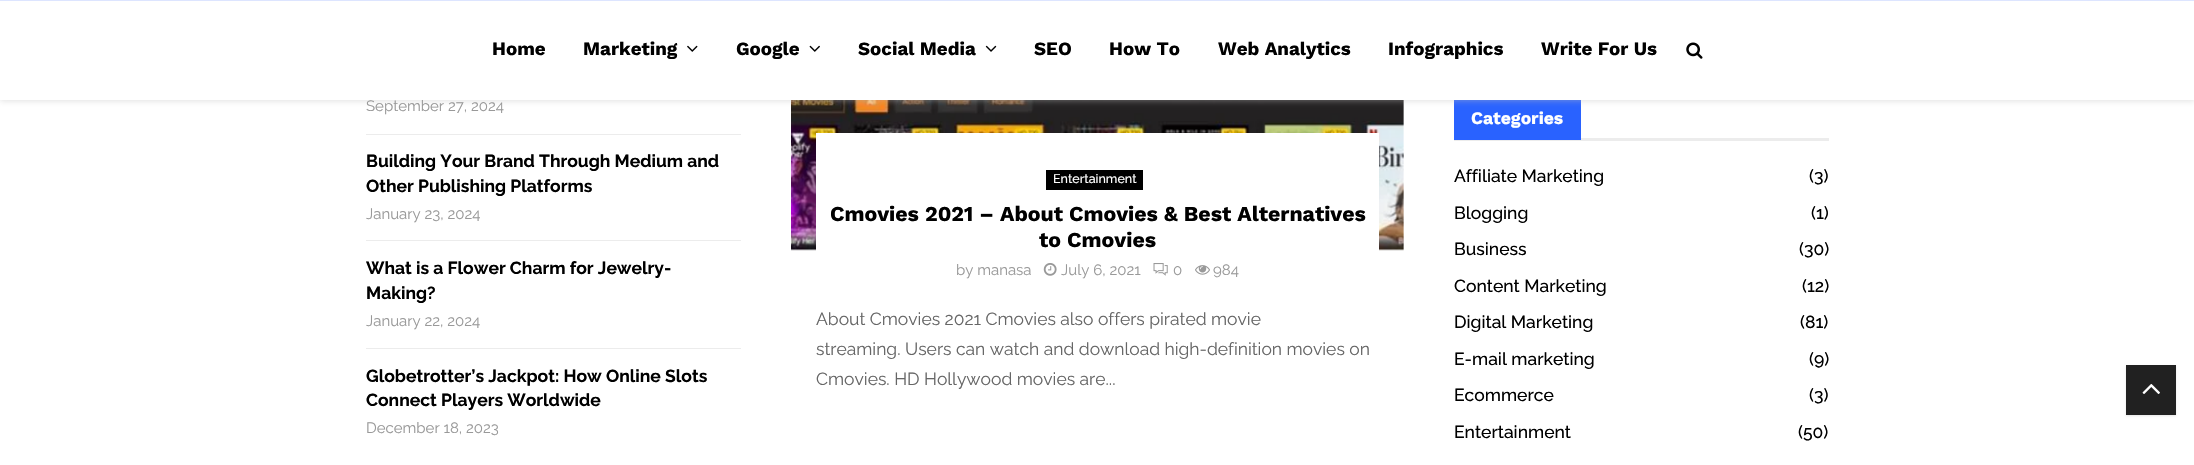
void draw(SkCanvas* canvas) {
	SkPaint paint;
	paint.setAntiAlias(true);
	canvas->clear(0xffffffff);
	canvas->drawImageRect(SkImages::DeferredFromEncodedData(SkData::MakeFromFileName("img5.png")), SkRect::MakeXYWH(791, 100, 613, 151), SkSamplingOptions());
	paint.setColor(0xffececec);
	canvas->drawRect(SkRect::MakeXYWH(1454, 138, 375, 3), paint);
	paint.setColor(0xff2962ff);
	canvas->drawRect(SkRect::MakeXYWH(1454, 100, 127, 40), paint);
	paint.setColor(0x75bebebe);
	paint.setMaskFilter(SkMaskFilter::MakeBlur(kNormal_SkBlurStyle, 3));
	canvas->drawRect(SkRect::MakeXYWH(0, 1, 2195, 100), paint);
	paint.setMaskFilter(nullptr);
	paint.setColor(0xffffffff);
	canvas->drawRect(SkRect::MakeXYWH(0, 1, 2194, 99), paint);
	paint.setColor(0xffdde5ff);
	canvas->drawRect(SkRect::MakeXYWH(0, 0, 2194, 1), paint);
	SkFont f1(fontMgr->matchFamilyStyle("Work Sans", SkFontStyle::Bold()), 18.75);
	f1.setSubpixel(true);
	paint.setColor(0xff000000);
	canvas->drawString("Home", 492, 55, f1, paint);
	canvas->drawString("Marketing", 583, 55, f1, paint);
	canvas->drawImageRect(SkImages::DeferredFromEncodedData(SkData::MakeFromFileName("img1.png")), SkRect::MakeXYWH(687, 45, 11, 7), SkSamplingOptions());
	canvas->drawString("Google", 736, 55, f1, paint);
	canvas->drawImageRect(SkImages::DeferredFromEncodedData(SkData::MakeFromFileName("img2.png")), SkRect::MakeXYWH(809, 45, 11, 7), SkSamplingOptions());
	canvas->drawString("Social Media", 858, 55, f1, paint);
	canvas->drawImageRect(SkImages::DeferredFromEncodedData(SkData::MakeFromFileName("img3.png")), SkRect::MakeXYWH(985, 45, 12, 7), SkSamplingOptions());
	canvas->drawString("SEO", 1034, 55, f1, paint);
	canvas->drawString("How To", 1109, 55, f1, paint);
	canvas->drawString("Web Analytics", 1218, 55, f1, paint);
	canvas->drawString("Infographics", 1388, 55, f1, paint);
	canvas->drawString("Write For Us", 1541, 55, f1, paint);
	canvas->drawImageRect(SkImages::DeferredFromEncodedData(SkData::MakeFromFileName("img4.png")), SkRect::MakeXYWH(1686, 42, 17, 17), SkSamplingOptions());
	paint.setColor(0xffececec);
	canvas->drawRect(SkRect::MakeXYWH(366, 134, 375, 1), paint);
	SkFont f2(fontMgr->matchFamilyStyle("Raleway", SkFontStyle::Normal()), 15);
	f2.setSubpixel(true);
	paint.setColor(0xff999999);
	canvas->drawString("September 27, 2024", 366, 111, f2, paint);
	paint.setColor(0xffececec);
	canvas->drawRect(SkRect::MakeXYWH(366, 240, 375, 1), paint);
	SkFont f3(fontMgr->matchFamilyStyle("Raleway", SkFontStyle::Bold()), 17.5);
	f3.setSubpixel(true);
	paint.setColor(0xff000000);
	canvas->drawString("Building Your Brand Through Medium and", 366, 167, f3, paint);
	canvas->drawString("Other Publishing Platforms", 366, 192, f3, paint);
	paint.setColor(0xff999999);
	canvas->drawString("January 23, 2024", 366, 219, f2, paint);
	paint.setColor(0xffececec);
	canvas->drawRect(SkRect::MakeXYWH(366, 348, 375, 1), paint);
	paint.setColor(0xff000000);
	canvas->drawString("What is a Flower Charm for Jewelry-", 366, 274, f3, paint);
	canvas->drawString("Making?", 366, 299, f3, paint);
	paint.setColor(0xff999999);
	canvas->drawString("January 22, 2024", 366, 326, f2, paint);
	paint.setColor(0xff000000);
	canvas->drawString("Globetrotter’s Jackpot: How Online Slots", 366, 382, f3, paint);
	canvas->drawString("Connect Players Worldwide", 366, 406, f3, paint);
	paint.setColor(0xff999999);
	canvas->drawString("December 18, 2023", 366, 433, f2, paint);
	paint.setColor(0xffffffff);
	canvas->drawRect(SkRect::MakeXYWH(816, 133, 563, 118), paint);
	paint.setColor(0xff000000);
	canvas->drawRect(SkRect::MakeXYWH(1046, 170, 97, 20), paint);
	SkFont f4(fontMgr->matchFamilyStyle("Raleway", SkFontStyle(500, SkFontStyle::kNormal_Width, SkFontStyle::kUpright_Slant)), 12.5);
	f4.setSubpixel(true);
	paint.setColor(0xffffffff);
	canvas->drawString("Entertainment", 1053, 183, f4, paint);
	SkFont f5(fontMgr->matchFamilyStyle("Work Sans", SkFontStyle::Bold()), 21.25);
	f5.setSubpixel(true);
	paint.setColor(0xff000000);
	canvas->drawString("Cmovies 2021 – About Cmovies & Best Alternatives", 830, 221, f5, paint);
	canvas->drawString("to Cmovies", 1039, 247, f5, paint);
	paint.setColor(0xff999999);
	canvas->drawString("by manasa", 956, 275, f2, paint);
	canvas->drawImageRect(SkImages::DeferredFromEncodedData(SkData::MakeFromFileName("img6.png")), SkRect::MakeXYWH(1043, 263, 14, 13), SkSamplingOptions());
	canvas->drawString("July 6, 2021", 1061, 275, f2, paint);
	canvas->drawImageRect(SkImages::DeferredFromEncodedData(SkData::MakeFromFileName("img7.png")), SkRect::MakeXYWH(1153, 263, 15, 13), SkSamplingOptions());
	canvas->drawString("0", 1173, 275, f2, paint);
	canvas->drawImageRect(SkImages::DeferredFromEncodedData(SkData::MakeFromFileName("img8.png")), SkRect::MakeXYWH(1195, 265, 15, 10), SkSamplingOptions());
	canvas->drawString("984", 1213, 275, f2, paint);
	SkFont f6(fontMgr->matchFamilyStyle("Raleway", SkFontStyle::Normal()), 17.5);
	f6.setSubpixel(true);
	paint.setColor(0xff666666);
	canvas->drawString("About Cmovies 2021 Cmovies also offers pirated movie", 816, 325, f6, paint);
	canvas->drawString("streaming. Users can watch and download high-definition movies on", 816, 355, f6, paint);
	canvas->drawString("Cmovies. HD Hollywood movies are...", 816, 385, f6, paint);
	SkFont f7(fontMgr->matchFamilyStyle("Work Sans", SkFontStyle::Bold()), 17.5);
	f7.setSubpixel(true);
	paint.setColor(0xffffffff);
	canvas->drawString("Categories", 1471, 124, f7, paint);
	SkFont f8(fontMgr->matchFamilyStyle("Raleway", SkFontStyle(500, SkFontStyle::kNormal_Width, SkFontStyle::kUpright_Slant)), 17.5);
	f8.setSubpixel(true);
	paint.setColor(0xff000000);
	canvas->drawString("Affiliate Marketing", 1454, 182, f8, paint);
	canvas->drawString("(3)", 1809, 182, f8, paint);
	canvas->drawString("Blogging", 1454, 219, f8, paint);
	canvas->drawString("(1)", 1811, 219, f8, paint);
	canvas->drawString("Business", 1454, 255, f8, paint);
	canvas->drawString("(30)", 1799, 255, f8, paint);
	canvas->drawString("Content Marketing", 1454, 292, f8, paint);
	canvas->drawString("(12)", 1802, 292, f8, paint);
	canvas->drawString("Digital Marketing", 1454, 328, f8, paint);
	canvas->drawString("(81)", 1800, 328, f8, paint);
	canvas->drawString("E-mail marketing", 1454, 365, f8, paint);
	canvas->drawString("(9)", 1809, 365, f8, paint);
	canvas->drawString("Ecommerce", 1454, 401, f8, paint);
	canvas->drawString("(3)", 1809, 401, f8, paint);
	canvas->drawString("Entertainment", 1454, 438, f8, paint);
	canvas->drawString("(50)", 1798, 438, f8, paint);
	paint.setColor(0x1a000000);
	paint.setMaskFilter(SkMaskFilter::MakeBlur(kNormal_SkBlurStyle, 1));
	canvas->drawRect(SkRect::MakeXYWH(2126, 366, 50, 50), paint);
	paint.setMaskFilter(nullptr);
	paint.setColor(0xff212121);
	canvas->drawRect(SkRect::MakeXYWH(2126, 365, 50, 50), paint);
	canvas->drawImageRect(SkImages::DeferredFromEncodedData(SkData::MakeFromFileName("img9.png")), SkRect::MakeXYWH(2142, 384, 18, 10), SkSamplingOptions());
}
